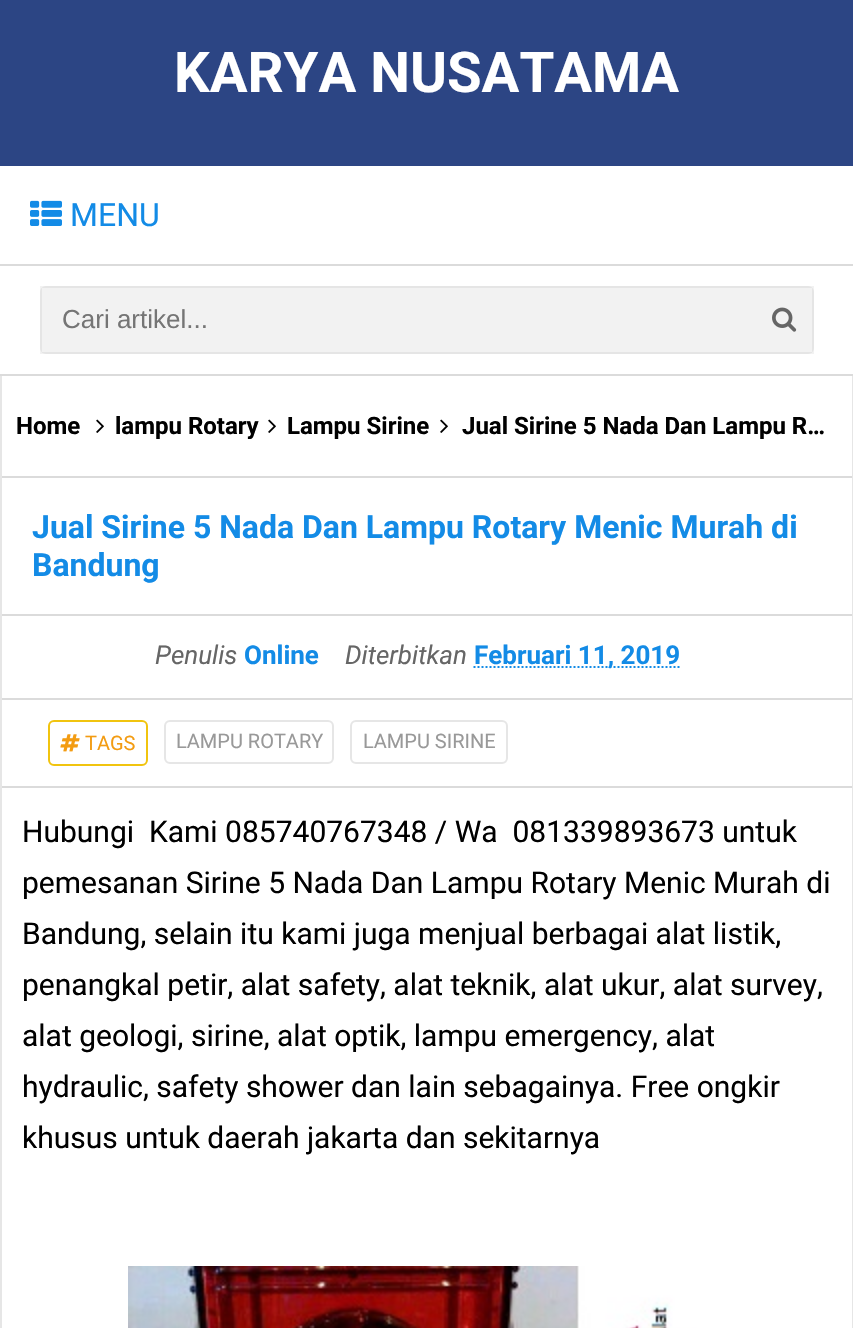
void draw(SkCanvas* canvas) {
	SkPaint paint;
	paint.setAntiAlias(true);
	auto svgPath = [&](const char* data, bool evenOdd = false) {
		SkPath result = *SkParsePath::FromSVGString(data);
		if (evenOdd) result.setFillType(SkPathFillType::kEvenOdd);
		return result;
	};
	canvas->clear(0xffffffff);
	paint.setColor(0xff2c4584);
	canvas->drawRect(SkRect::MakeXYWH(0, 0, 853, 166), paint);
	SkFont f1(fontMgr->matchFamilyStyle("Roboto", SkFontStyle::Bold()), 56.25);
	f1.setSubpixel(true);
	paint.setColor(0xffffffff);
	canvas->drawString("KARYA NUSATAMA", 174, 92, f1, paint);
	paint.setColor(0xffdbdbdb);
	canvas->drawRect(SkRect::MakeXYWH(0, 264, 853, 2), paint);
	canvas->drawImageRect(SkImages::DeferredFromEncodedData(SkData::MakeFromFileName("img1.png")), SkRect::MakeXYWH(30, 200, 32, 26), SkSamplingOptions());
	SkFont f2(fontMgr->matchFamilyStyle("Roboto", SkFontStyle::Normal()), 32);
	f2.setSubpixel(true);
	paint.setColor(0xff138be6);
	canvas->drawString("MENU", 70, 226, f2, paint);
	paint.setColor(0xffdbdbdb);
	canvas->drawRect(SkRect::MakeXYWH(0, 374, 853, 2), paint);
	paint.setColor(0xfff2f2f2);
	canvas->drawRoundRect(SkRect::MakeXYWH(40, 286, 774, 68), 6, 6, paint);
	paint.setStroke(true);
	paint.setStrokeWidth(2);
	paint.setColor(0x0d000000);
	canvas->drawRect(SkRect::MakeXYWH(41, 287, 772, 66), paint);
	SkFont f3(fontMgr->matchFamilyStyle("Liberation Sans", SkFontStyle::Normal()), 26);
	f3.setSubpixel(true);
	paint.setStroke(false);
	paint.setColor(0xff757575);
	canvas->drawString("Cari artikel...", 62, 328, f3, paint);
	canvas->drawImageRect(SkImages::DeferredFromEncodedData(SkData::MakeFromFileName("img2.png")), SkRect::MakeXYWH(772, 307, 25, 25), SkSamplingOptions());
	paint.setColor(0xffe6e6e6);
	canvas->drawRect(SkRect::MakeXYWH(852, 376, 1, 952), paint);
	canvas->drawRect(SkRect::MakeXYWH(0, 376, 2, 952), paint);
	paint.setColor(0xffdbdbdb);
	canvas->drawRect(SkRect::MakeXYWH(2, 476, 850, 2), paint);
	SkFont f4(fontMgr->matchFamilyStyle("Roboto", SkFontStyle::Bold()), 24);
	f4.setSubpixel(true);
	paint.setColor(0xff000000);
	canvas->drawString("Home", 16, 434, f4, paint);
	canvas->drawImageRect(SkImages::DeferredFromEncodedData(SkData::MakeFromFileName("img3.png")), SkRect::MakeXYWH(96, 419, 8, 14), SkSamplingOptions());
	canvas->drawString("lampu Rotary", 115, 434, f4, paint);
	canvas->drawImageRect(SkImages::DeferredFromEncodedData(SkData::MakeFromFileName("img3.png")), SkRect::MakeXYWH(268, 419, 8, 14), SkSamplingOptions());
	canvas->drawString("Lampu Sirine", 287, 434, f4, paint);
	canvas->drawImageRect(SkImages::DeferredFromEncodedData(SkData::MakeFromFileName("img3.png")), SkRect::MakeXYWH(440, 419, 8, 14), SkSamplingOptions());
	canvas->drawString("Jual Sirine 5 Nada Dan Lampu R…", 462, 434, f4, paint);
	SkFont f5(fontMgr->matchFamilyStyle("Roboto", SkFontStyle::Bold()), 32);
	f5.setSubpixel(true);
	paint.setColor(0xff138be6);
	canvas->drawString("Jual Sirine 5 Nada Dan Lampu Rotary Menic Murah di", 32, 538, f5, paint);
	canvas->drawString("Bandung", 32, 576, f5, paint);
	paint.setColor(0xffdbdbdb);
	canvas->drawRect(SkRect::MakeXYWH(2, 614, 850, 2), paint);
	canvas->drawRect(SkRect::MakeXYWH(2, 698, 850, 2), paint);
	SkFont f6(fontMgr->matchFamilyStyle("Roboto", SkFontStyle::Italic()), 26);
	f6.setSubpixel(true);
	paint.setColor(0xff666666);
	canvas->drawString("Penulis", 155, 664, f6, paint);
	SkFont f7(fontMgr->matchFamilyStyle("Roboto", SkFontStyle::Bold()), 26);
	f7.setSubpixel(true);
	paint.setColor(0xff138be6);
	canvas->drawString("Online", 244, 664, f7, paint);
	paint.setColor(0xff666666);
	canvas->drawString("Diterbitkan", 345, 664, f6, paint);
	paint.setStroke(true);
	paint.setColor(0xff138be6);
	paint.setPathEffect(SkDashPathEffect::Make({{2, 2}}, 0));
	canvas->drawPath(svgPath("M473.5 667H680"), paint);
	paint.setPathEffect(nullptr);
	paint.setStroke(false);
	canvas->drawString("Februari 11, 2019", 474, 664, f7, paint);
	paint.setColor(0xffdbdbdb);
	canvas->drawRect(SkRect::MakeXYWH(2, 786, 850, 2), paint);
	paint.setStroke(true);
	paint.setColor(0xfff1c40f);
	canvas->drawRoundRect(SkRect::MakeXYWH(49, 721, 98, 44), 5, 5, paint);
	canvas->drawImageRect(SkImages::DeferredFromEncodedData(SkData::MakeFromFileName("img4.png")), SkRect::MakeXYWH(60, 734, 20, 18), SkSamplingOptions());
	SkFont f8(fontMgr->matchFamilyStyle("Roboto", SkFontStyle::Normal()), 20);
	f8.setSubpixel(true);
	paint.setStroke(false);
	paint.setColor(0xfff39c12);
	canvas->drawString("TAGS", 85, 750, f8, paint);
	paint.setStroke(true);
	paint.setColor(0xffe6e6e6);
	canvas->drawRoundRect(SkRect::MakeXYWH(165, 721, 168, 42), 5, 5, paint);
	paint.setStroke(false);
	paint.setColor(0xff999999);
	canvas->drawString("LAMPU ROTARY", 176, 748, f8, paint);
	paint.setStroke(true);
	paint.setColor(0xffe6e6e6);
	canvas->drawRoundRect(SkRect::MakeXYWH(351, 721, 156, 42), 5, 5, paint);
	paint.setStroke(false);
	paint.setColor(0xff999999);
	canvas->drawString("LAMPU SIRINE", 363, 748, f8, paint);
	SkFont f9(fontMgr->matchFamilyStyle("Roboto", SkFontStyle::Normal()), 30);
	f9.setSubpixel(true);
	paint.setColor(0xff000000);
	canvas->drawString("Hubungi  Kami 085740767348 / Wa  081339893673 untuk", 22, 842, f9, paint);
	canvas->drawString("pemesanan Sirine 5 Nada Dan Lampu Rotary Menic Murah di", 22, 893, f9, paint);
	canvas->drawString("Bandung, selain itu kami juga menjual berbagai alat listik,", 22, 944, f9, paint);
	canvas->drawString("penangkal petir, alat safety, alat teknik, alat ukur, alat survey,", 22, 995, f9, paint);
	canvas->drawString("alat geologi, sirine, alat optik, lampu emergency, alat", 22, 1046, f9, paint);
	canvas->drawString("hydraulic, safety shower dan lain sebagainya. Free ongkir", 22, 1097, f9, paint);
	canvas->drawString("khusus untuk daerah jakarta dan sekitarnya", 22, 1148, f9, paint);
	canvas->drawImageRect(SkImages::DeferredFromEncodedData(SkData::MakeFromFileName("img5.png")), SkRect::MakeXYWH(128, 1266, 600, 62), SkSamplingOptions());
}
